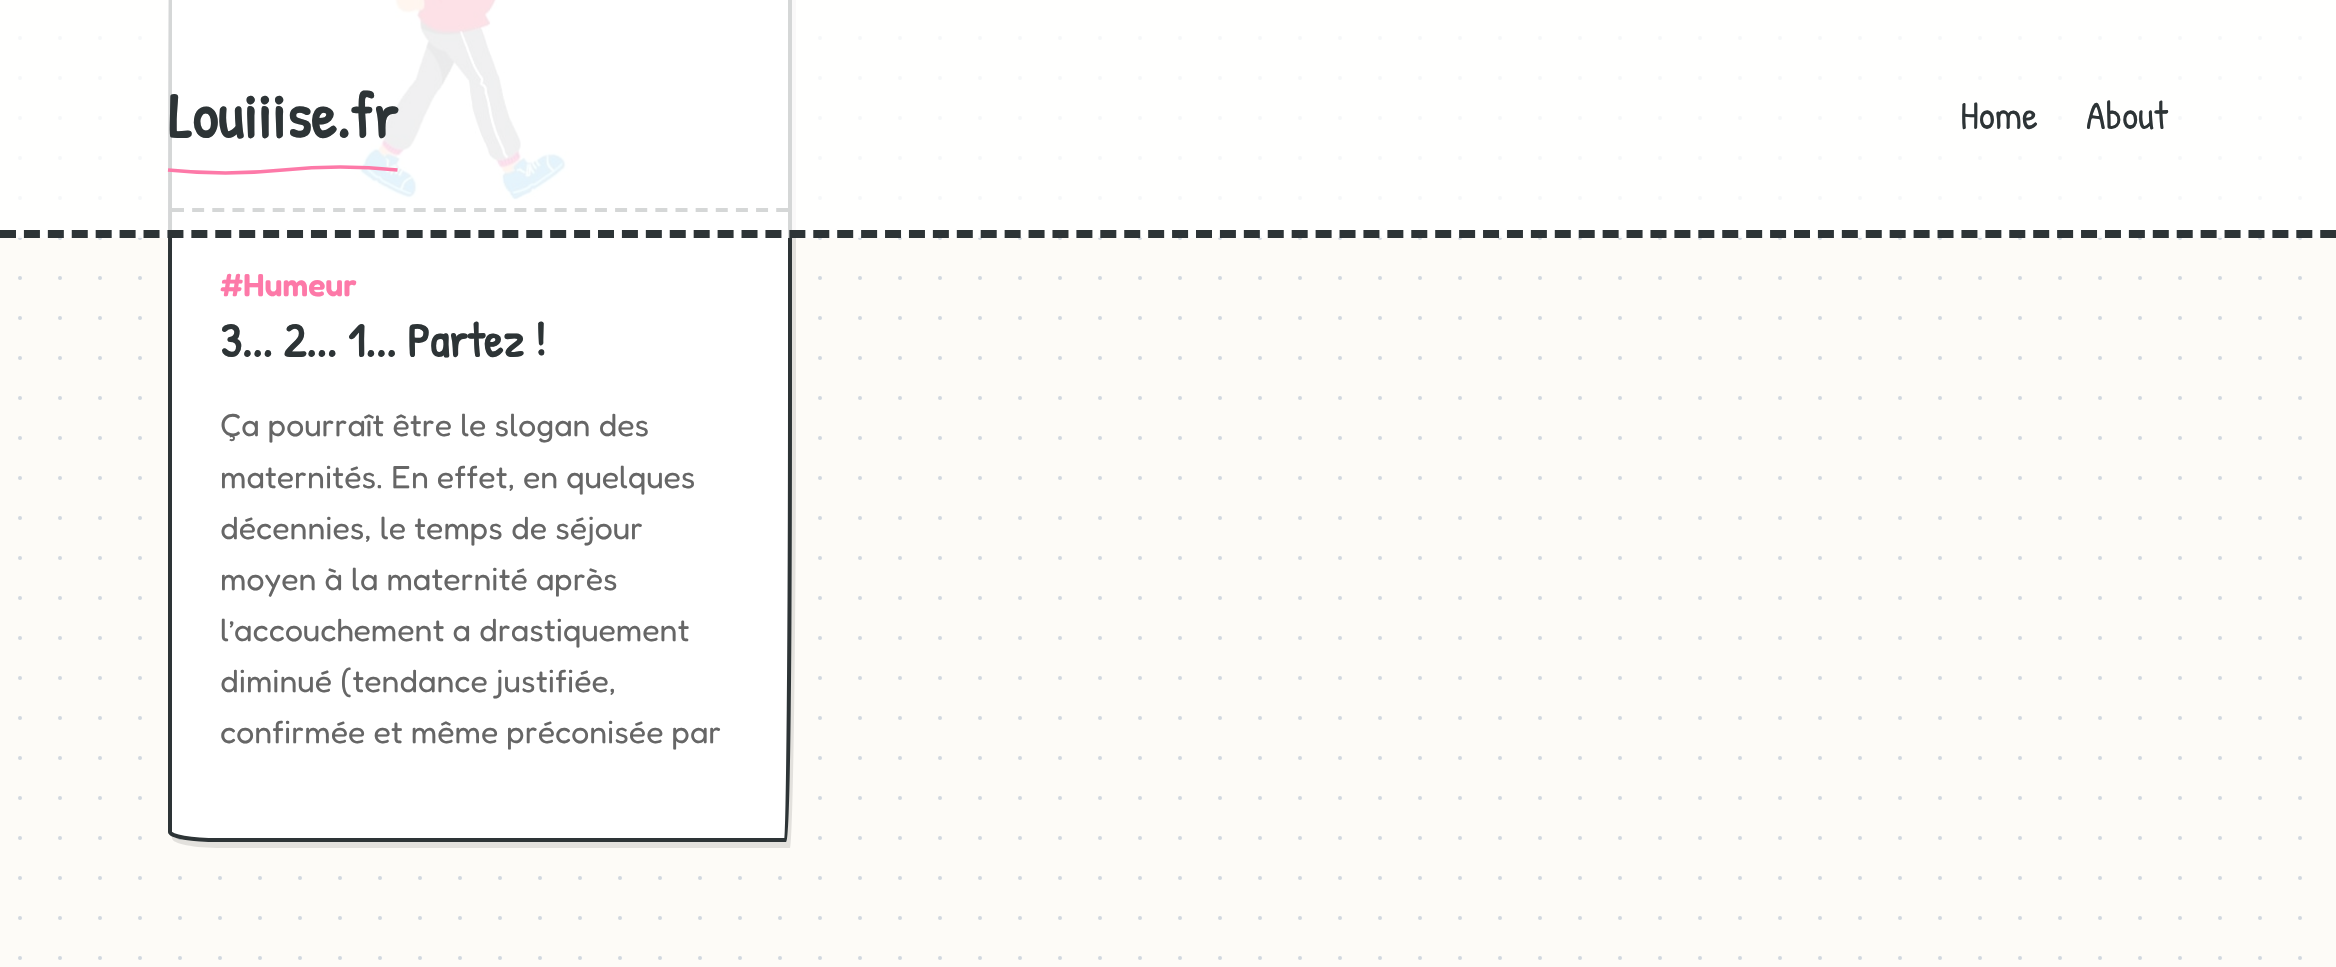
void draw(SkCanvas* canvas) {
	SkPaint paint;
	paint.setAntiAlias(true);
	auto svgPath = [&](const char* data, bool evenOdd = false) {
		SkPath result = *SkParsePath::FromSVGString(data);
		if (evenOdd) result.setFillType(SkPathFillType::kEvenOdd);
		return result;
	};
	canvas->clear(0xfffdfbf7);
	paint.setStroke(true);
	paint.setStrokeWidth(4);
	paint.setStrokeCap(SkPaint::kRound_Cap);
	paint.setColor(0xffd1d8e0);
	paint.setPathEffect(SkDashPathEffect::Make({{0, 40}}, 0));
	canvas->drawPath(svgPath("M20 38H2300.4"), paint);
	paint.setPathEffect(nullptr);
	paint.setPathEffect(SkDashPathEffect::Make({{0, 40}}, 0));
	canvas->drawPath(svgPath("M20 78H2300.4"), paint);
	paint.setPathEffect(nullptr);
	paint.setPathEffect(SkDashPathEffect::Make({{0, 40}}, 0));
	canvas->drawPath(svgPath("M20 118H2300.4"), paint);
	paint.setPathEffect(nullptr);
	paint.setPathEffect(SkDashPathEffect::Make({{0, 40}}, 0));
	canvas->drawPath(svgPath("M20 158H2300.4"), paint);
	paint.setPathEffect(nullptr);
	paint.setPathEffect(SkDashPathEffect::Make({{0, 40}}, 0));
	canvas->drawPath(svgPath("M20 198H2300.4"), paint);
	paint.setPathEffect(nullptr);
	paint.setPathEffect(SkDashPathEffect::Make({{0, 40}}, 0));
	canvas->drawPath(svgPath("M20 238H2300.4"), paint);
	paint.setPathEffect(nullptr);
	paint.setPathEffect(SkDashPathEffect::Make({{0, 40}}, 0));
	canvas->drawPath(svgPath("M20 278H2300.4"), paint);
	paint.setPathEffect(nullptr);
	paint.setPathEffect(SkDashPathEffect::Make({{0, 40}}, 0));
	canvas->drawPath(svgPath("M20 318H2300.4"), paint);
	paint.setPathEffect(nullptr);
	paint.setPathEffect(SkDashPathEffect::Make({{0, 40}}, 0));
	canvas->drawPath(svgPath("M20 358H2300.4"), paint);
	paint.setPathEffect(nullptr);
	paint.setPathEffect(SkDashPathEffect::Make({{0, 40}}, 0));
	canvas->drawPath(svgPath("M20 398H2300.4"), paint);
	paint.setPathEffect(nullptr);
	paint.setPathEffect(SkDashPathEffect::Make({{0, 40}}, 0));
	canvas->drawPath(svgPath("M20 438H2300.4"), paint);
	paint.setPathEffect(nullptr);
	paint.setPathEffect(SkDashPathEffect::Make({{0, 40}}, 0));
	canvas->drawPath(svgPath("M20 478H2300.4"), paint);
	paint.setPathEffect(nullptr);
	paint.setPathEffect(SkDashPathEffect::Make({{0, 40}}, 0));
	canvas->drawPath(svgPath("M20 518H2300.4"), paint);
	paint.setPathEffect(nullptr);
	paint.setPathEffect(SkDashPathEffect::Make({{0, 40}}, 0));
	canvas->drawPath(svgPath("M20 558H2300.4"), paint);
	paint.setPathEffect(nullptr);
	paint.setPathEffect(SkDashPathEffect::Make({{0, 40}}, 0));
	canvas->drawPath(svgPath("M20 598H2300.4"), paint);
	paint.setPathEffect(nullptr);
	paint.setPathEffect(SkDashPathEffect::Make({{0, 40}}, 0));
	canvas->drawPath(svgPath("M20 638H2300.4"), paint);
	paint.setPathEffect(nullptr);
	paint.setPathEffect(SkDashPathEffect::Make({{0, 40}}, 0));
	canvas->drawPath(svgPath("M20 678H2300.4"), paint);
	paint.setPathEffect(nullptr);
	paint.setPathEffect(SkDashPathEffect::Make({{0, 40}}, 0));
	canvas->drawPath(svgPath("M20 718H2300.4"), paint);
	paint.setPathEffect(nullptr);
	paint.setPathEffect(SkDashPathEffect::Make({{0, 40}}, 0));
	canvas->drawPath(svgPath("M20 758H2300.4"), paint);
	paint.setPathEffect(nullptr);
	paint.setPathEffect(SkDashPathEffect::Make({{0, 40}}, 0));
	canvas->drawPath(svgPath("M20 798H2300.4"), paint);
	paint.setPathEffect(nullptr);
	paint.setPathEffect(SkDashPathEffect::Make({{0, 40}}, 0));
	canvas->drawPath(svgPath("M20 838H2300.4"), paint);
	paint.setPathEffect(nullptr);
	paint.setPathEffect(SkDashPathEffect::Make({{0, 40}}, 0));
	canvas->drawPath(svgPath("M20 878H2300.4"), paint);
	paint.setPathEffect(nullptr);
	paint.setPathEffect(SkDashPathEffect::Make({{0, 40}}, 0));
	canvas->drawPath(svgPath("M20 918H2300.4"), paint);
	paint.setPathEffect(nullptr);
	paint.setPathEffect(SkDashPathEffect::Make({{0, 40}}, 0));
	canvas->drawPath(svgPath("M20 958H2300.4"), paint);
	paint.setPathEffect(nullptr);
	paint.setStroke(false);
	paint.setColor(0x1a000000);
	canvas->drawPath(svgPath("M172 836V838C172 844 194 848 222 848H790C793 848 796 647 796 398V-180C796-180 795-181 792-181V392C792 641 789 842 786 842H218C197 842 180 839 172 836Z"), paint);
	paint.setColor(0xffffffff);
	canvas->drawPath(svgPath("M172-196H282C564-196 792-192 792-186V392C792 641 789 842 786 842H218C190 842 168 838 168 832V314C168 32 170-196 172-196Z"), paint);
	paint.setStroke(true);
	paint.setStrokeCap(SkPaint::kButt_Cap);
	paint.setColor(0xff2d3436);
	canvas->drawPath(svgPath("M172-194H282C562.5-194 790-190.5 790-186V392C790 639.5 788 840 786 840H218C191.5 840 170 836.5 170 832V314C170 33.5 171-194 172-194Z"), paint);
	paint.setPathEffect(SkDashPathEffect::Make({{12, 8.14f}}, 0));
	canvas->drawPath(svgPath("M172 210H788"), paint);
	paint.setPathEffect(nullptr);
	canvas->drawImageRect(SkImages::DeferredFromEncodedData(SkData::MakeFromFileName("img1.png")), SkRect::MakeXYWH(172, 0, 398, 208), SkSamplingOptions());
	paint.setStroke(false);
	paint.setColor(0xccffffff);
	canvas->drawRect(SkRect::MakeXYWH(0, 0, 2336, 238), paint);
	paint.setStroke(true);
	paint.setStrokeWidth(8);
	paint.setColor(0xff2d3436);
	paint.setPathEffect(SkDashPathEffect::Make({{16, 7.92f}}, 0));
	canvas->drawPath(svgPath("M0 234H2336"), paint);
	paint.setPathEffect(nullptr);
	SkFont f1(fontMgr->matchFamilyStyle("Patrick Hand", SkFontStyle::Bold()), 64);
	f1.setSubpixel(true);
	paint.setStroke(false);
	canvas->drawString("Louiiise.fr", 168, 138, f1, paint);
	paint.setStroke(true);
	paint.setStrokeWidth(3.5);
	paint.setColor(0xfffd79a8);
	canvas->drawPath(svgPath("M168 170C206.5 174 244.5 174 283 170C321 166 359.5 166 397.5 170"), paint);
	SkFont f2(fontMgr->matchFamilyStyle("Patrick Hand", SkFontStyle::Normal()), 40);
	f2.setSubpixel(true);
	paint.setStroke(false);
	paint.setColor(0xff2d3436);
	canvas->drawString("Home", 1960, 129, f2, paint);
	canvas->drawString("About", 2086, 129, f2, paint);
	SkFont f3(fontMgr->matchFamilyStyle("Fredoka", SkFontStyle(600, SkFontStyle::kNormal_Width, SkFontStyle::kUpright_Slant)), 32);
	f3.setSubpixel(true);
	paint.setColor(0xfffd79a8);
	canvas->drawString("#Humeur", 220, 296, f3, paint);
	SkFont f4(fontMgr->matchFamilyStyle("Patrick Hand", SkFontStyle::Bold()), 48);
	f4.setSubpixel(true);
	paint.setColor(0xff2d3436);
	canvas->drawString("3... 2... 1... Partez !", 220, 357, f4, paint);
	SkFont f5(fontMgr->matchFamilyStyle("Fredoka", SkFontStyle::Normal()), 32);
	f5.setSubpixel(true);
	paint.setColor(0xff666666);
	canvas->drawString("Ça pourraît être le slogan des", 220, 436, f5, paint);
	canvas->drawString("maternités. En effet, en quelques", 220, 488, f5, paint);
	canvas->drawString("décennies, le temps de séjour", 220, 539, f5, paint);
	canvas->drawString("moyen à la maternité après", 220, 590, f5, paint);
	canvas->drawString("l’accouchement a drastiquement", 220, 641, f5, paint);
	canvas->drawString("diminué (tendance justifiée,", 220, 692, f5, paint);
	canvas->drawString("confirmée et même préconisée par", 220, 743, f5, paint);
}
